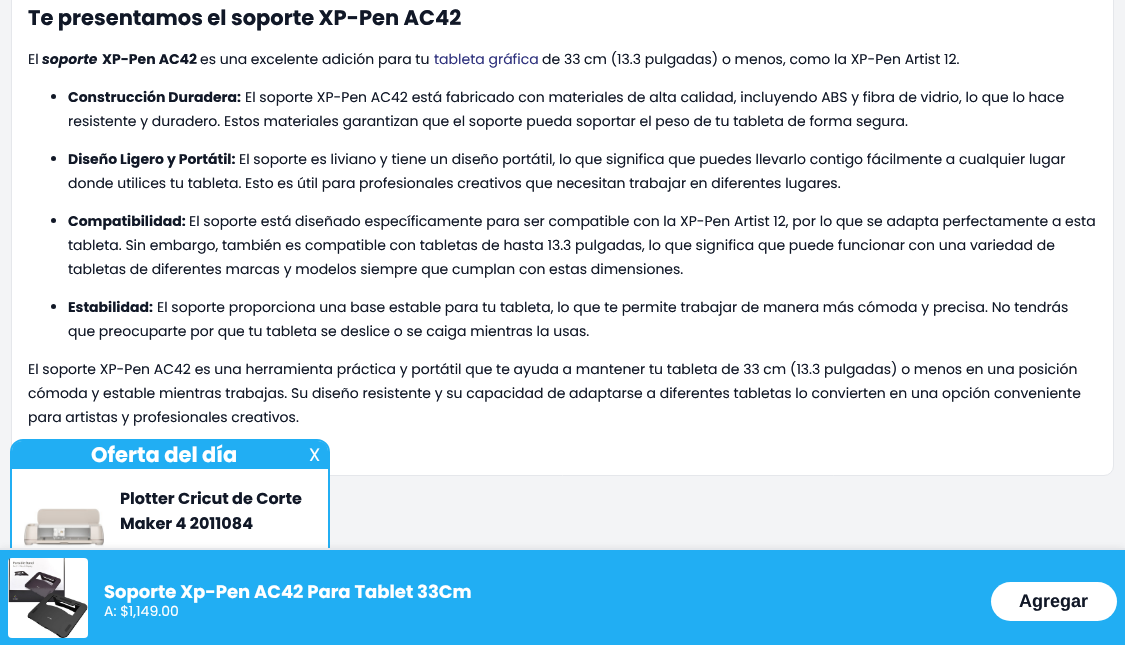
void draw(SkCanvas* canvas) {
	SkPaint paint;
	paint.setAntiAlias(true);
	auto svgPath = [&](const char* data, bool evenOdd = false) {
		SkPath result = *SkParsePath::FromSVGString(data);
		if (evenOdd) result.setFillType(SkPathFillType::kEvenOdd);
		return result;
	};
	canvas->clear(0xfff3f4f6);
	paint.setColor(0xffffffff);
	canvas->drawRoundRect(SkRect::MakeXYWH(11.5, -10.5, 1102, 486), 9.5, 9.5, paint);
	paint.setStroke(true);
	paint.setStrokeWidth(1);
	paint.setColor(0xffe5e7eb);
	canvas->drawRoundRect(SkRect::MakeXYWH(11.5, -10.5, 1102, 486), 9.5, 9.5, paint);
	SkFont f1(fontMgr->matchFamilyStyle("Poppins", SkFontStyle::Bold()), 21);
	f1.setSubpixel(true);
	paint.setStroke(false);
	paint.setColor(0xff111827);
	canvas->drawString("Te presentamos el soporte XP-Pen AC42", 28, 25, f1, paint);
	SkFont f2(fontMgr->matchFamilyStyle("Poppins", SkFontStyle::Normal()), 14);
	f2.setSubpixel(true);
	canvas->drawString("El", 28, 64, f2, paint);
	SkFont f3(fontMgr->matchFamilyStyle("Poppins", SkFontStyle::BoldItalic()), 14);
	f3.setSubpixel(true);
	canvas->drawString("soporte", 42, 64, f3, paint);
	SkFont f4(fontMgr->matchFamilyStyle("Poppins", SkFontStyle::Bold()), 14);
	f4.setSubpixel(true);
	canvas->drawString("XP-Pen AC42", 102, 64, f4, paint);
	canvas->drawString("es una excelente adición para tu", 200, 64, f2, paint);
	paint.setColor(0xff30337e);
	canvas->drawString("tableta gráfica", 434, 64, f2, paint);
	paint.setColor(0xff111827);
	canvas->drawString("de 33 cm (13.3 pulgadas) o menos, como la XP-Pen Artist 12.", 542, 64, f2, paint);
	canvas->drawCircle(53.5, 96.5, 2.5, paint);
	canvas->drawString("Construcción Duradera:", 68, 102, f4, paint);
	canvas->drawString("El soporte XP-Pen AC42 está fabricado con materiales de alta calidad, incluyendo ABS y fibra de vidrio, lo que lo hace", 245, 102, f2, paint);
	canvas->drawString("resistente y duradero. Estos materiales garantizan que el soporte pueda soportar el peso de tu tableta de forma segura.", 68, 126, f2, paint);
	canvas->drawCircle(53.5, 158.5, 2.5, paint);
	canvas->drawString("Diseño Ligero y Portátil:", 68, 164, f4, paint);
	canvas->drawString("El soporte es liviano y tiene un diseño portátil, lo que significa que puedes llevarlo contigo fácilmente a cualquier lugar", 239, 164, f2, paint);
	canvas->drawString("donde utilices tu tableta. Esto es útil para profesionales creativos que necesitan trabajar en diferentes lugares.", 68, 188, f2, paint);
	canvas->drawCircle(53.5, 220.5, 2.5, paint);
	canvas->drawString("Compatibilidad:", 68, 226, f4, paint);
	canvas->drawString("El soporte está diseñado específicamente para ser compatible con la XP-Pen Artist 12, por lo que se adapta perfectamente a esta", 189, 226, f2, paint);
	canvas->drawString("tableta. Sin embargo, también es compatible con tabletas de hasta 13.3 pulgadas, lo que significa que puede funcionar con una variedad de", 68, 250, f2, paint);
	canvas->drawString("tabletas de diferentes marcas y modelos siempre que cumplan con estas dimensiones.", 68, 274, f2, paint);
	canvas->drawCircle(53.5, 306.5, 2.5, paint);
	canvas->drawString("Estabilidad:", 68, 312, f4, paint);
	canvas->drawString("El soporte proporciona una base estable para tu tableta, lo que te permite trabajar de manera más cómoda y precisa. No tendrás", 157, 312, f2, paint);
	canvas->drawString("que preocuparte por que tu tableta se deslice o se caiga mientras la usas.", 68, 336, f2, paint);
	canvas->drawString("El soporte XP-Pen AC42 es una herramienta práctica y portátil que te ayuda a mantener tu tableta de 33 cm (13.3 pulgadas) o menos en una posición", 28, 374, f2, paint);
	canvas->drawString("cómoda y estable mientras trabajas. Su diseño resistente y su capacidad de adaptarse a diferentes tabletas lo convierten en una opción conveniente", 28, 398, f2, paint);
	canvas->drawString("para artistas y profesionales creativos.", 28, 422, f2, paint);
	paint.setColor(0xffffffff);
	canvas->drawRoundRect(SkRect::MakeXYWH(11, 440, 318, 194), 12, 12, paint);
	paint.setStroke(true);
	paint.setStrokeWidth(2);
	paint.setColor(0xff21aef3);
	canvas->drawRoundRect(SkRect::MakeXYWH(11, 440, 318, 194), 12, 12, paint);
	paint.setStroke(false);
	canvas->drawPath(svgPath("M22 441H318C323.5 441 328 445.5 328 451V469H12V451C12 445.5 16.5 441 22 441Z"), paint);
	paint.setColor(0xffffffff);
	canvas->drawString("Oferta del día", 91, 462, f1, paint);
	SkFont f5(fontMgr->matchFamilyStyle("Poppins", SkFontStyle::Normal()), 18);
	f5.setSubpixel(true);
	canvas->drawString("X", 309, 461, f5, paint);
	canvas->drawImageRect(SkImages::DeferredFromEncodedData(SkData::MakeFromFileName("img1.png")), SkRect::MakeXYWH(24, 508, 80, 39), SkSamplingOptions());
	SkFont f6(fontMgr->matchFamilyStyle("Poppins", SkFontStyle::Bold()), 16);
	f6.setSubpixel(true);
	paint.setColor(0xff111827);
	canvas->drawString("Plotter Cricut de Corte", 120, 504, f6, paint);
	canvas->drawString("Maker 4 2011084", 120, 529, f6, paint);
	paint.setColor(0x33636363);
	paint.setMaskFilter(SkMaskFilter::MakeBlur(kNormal_SkBlurStyle, 4));
	canvas->drawRect(SkRect::MakeXYWH(0, 550, 1125, 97), paint);
	paint.setMaskFilter(nullptr);
	paint.setColor(0xff21aef3);
	canvas->drawRect(SkRect::MakeXYWH(0, 550, 1125, 95), paint);
	paint.setColor(0xffe5e7eb);
	canvas->drawRect(SkRect::MakeXYWH(0, 548, 1125, 2), paint);
	canvas->drawImageRect(SkImages::DeferredFromEncodedData(SkData::MakeFromFileName("img2.png")), SkRect::MakeXYWH(8, 558, 80, 80), SkSamplingOptions());
	SkFont f7(fontMgr->matchFamilyStyle("Poppins", SkFontStyle::Bold()), 18);
	f7.setSubpixel(true);
	paint.setColor(0xffffffff);
	canvas->drawString("Soporte Xp-Pen AC42 Para Tablet 33Cm", 104, 598, f7, paint);
	canvas->drawString("A: $1,149.00", 104, 616, f2, paint);
	canvas->drawRoundRect(SkRect::MakeXYWH(991, 582, 126, 39), 19.5, 19.5, paint);
	SkFont f8(fontMgr->matchFamilyStyle("Liberation Sans", SkFontStyle::Bold()), 18);
	f8.setSubpixel(true);
	paint.setColor(0xff111827);
	canvas->drawString("Agregar", 1019, 607, f8, paint);
}
